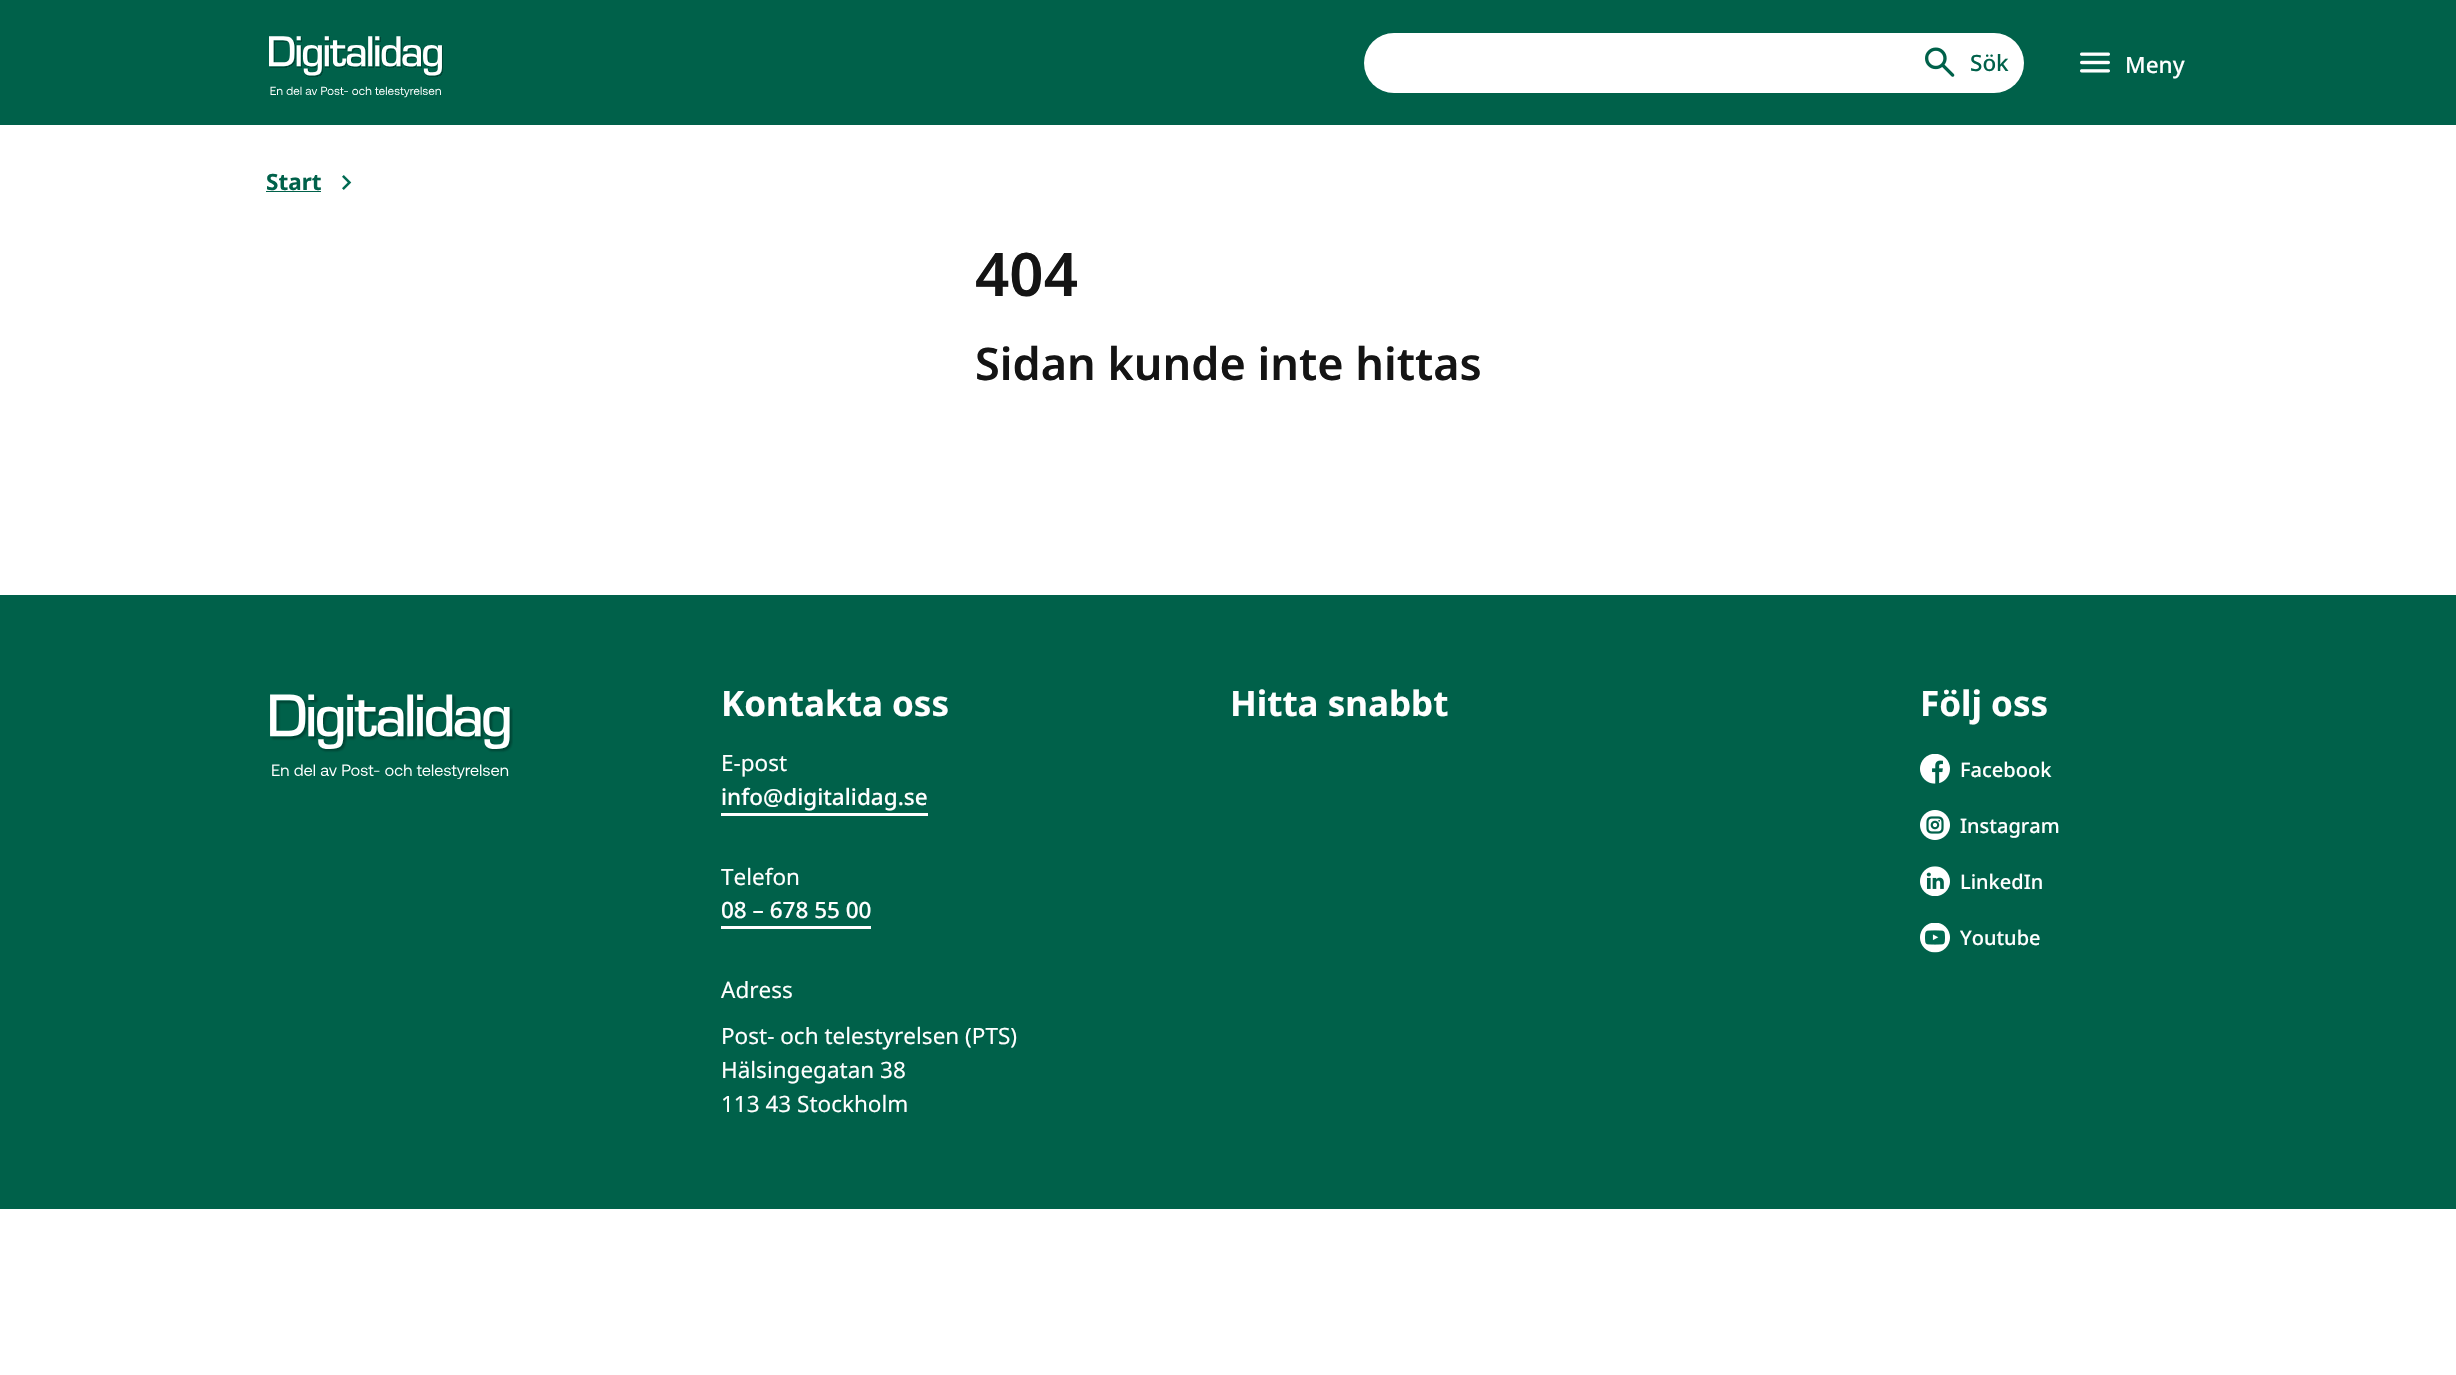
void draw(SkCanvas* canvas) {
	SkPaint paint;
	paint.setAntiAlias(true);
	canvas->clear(0xffffffff);
	paint.setColor(0xff00614a);
	canvas->drawRect(SkRect::MakeXYWH(0, 0, 2456, 125), paint);
	canvas->drawImageRect(SkImages::DeferredFromEncodedData(SkData::MakeFromFileName("img1.png")), SkRect::MakeXYWH(269, 36, 174, 62), SkSamplingOptions());
	paint.setColor(0xffffffff);
	canvas->drawRoundRect(SkRect::MakeXYWH(1364, 33, 660, 60), 30, 30, paint);
	canvas->drawImageRect(SkImages::DeferredFromEncodedData(SkData::MakeFromFileName("img2.png")), SkRect::MakeXYWH(1925, 47, 30, 30), SkSamplingOptions());
	SkFont f1(fontMgr->matchFamilyStyle("Noto Sans", SkFontStyle(500, SkFontStyle::kNormal_Width, SkFontStyle::kUpright_Slant)), 22.5);
	f1.setSubpixel(true);
	paint.setColor(0xff00614a);
	canvas->drawString("Sök", 1970, 71, f1, paint);
	canvas->drawImageRect(SkImages::DeferredFromEncodedData(SkData::MakeFromFileName("img3.png")), SkRect::MakeXYWH(2080, 52, 30, 21), SkSamplingOptions());
	paint.setColor(0xffffffff);
	canvas->drawString("Meny", 2125, 73, f1, paint);
	SkFont f2(fontMgr->matchFamilyStyle("Noto Sans", SkFontStyle::Bold()), 22.5);
	f2.setSubpixel(true);
	paint.setColor(0xff00614a);
	canvas->drawString("Start", 266, 190, f2, paint);
	canvas->drawRect(SkRect::MakeXYWH(266, 191, 55, 1), paint);
	canvas->drawImageRect(SkImages::DeferredFromEncodedData(SkData::MakeFromFileName("img4.png")), SkRect::MakeXYWH(342, 175, 10, 15), SkSamplingOptions());
	SkFont f3(fontMgr->matchFamilyStyle("Noto Sans", SkFontStyle(600, SkFontStyle::kNormal_Width, SkFontStyle::kUpright_Slant)), 60);
	f3.setSubpixel(true);
	paint.setColor(0xff141414);
	canvas->drawString("404", 975, 296, f3, paint);
	SkFont f4(fontMgr->matchFamilyStyle("Noto Sans", SkFontStyle(600, SkFontStyle::kNormal_Width, SkFontStyle::kUpright_Slant)), 45);
	f4.setSubpixel(true);
	canvas->drawString("Sidan kunde inte hittas", 975, 380, f4, paint);
	paint.setColor(0xff00614a);
	canvas->drawRect(SkRect::MakeXYWH(0, 595, 2456, 614), paint);
	canvas->drawImageRect(SkImages::DeferredFromEncodedData(SkData::MakeFromFileName("img5.png")), SkRect::MakeXYWH(270, 694, 243, 85), SkSamplingOptions());
	SkFont f5(fontMgr->matchFamilyStyle("Noto Sans", SkFontStyle::Bold()), 35);
	f5.setSubpixel(true);
	paint.setColor(0xffffffff);
	canvas->drawString("Kontakta oss", 721, 716, f5, paint);
	SkFont f6(fontMgr->matchFamilyStyle("Noto Sans", SkFontStyle::Normal()), 22.5);
	f6.setSubpixel(true);
	canvas->drawString("E-post", 721, 771, f6, paint);
	canvas->drawString("info@digitalidag.se", 721, 805, f1, paint);
	canvas->drawRect(SkRect::MakeXYWH(721, 813, 207, 3), paint);
	canvas->drawString("Telefon", 721, 885, f6, paint);
	canvas->drawString("08 – 678 55 00", 721, 918, f1, paint);
	canvas->drawRect(SkRect::MakeXYWH(721, 926, 150, 3), paint);
	canvas->drawString("Adress", 721, 998, f6, paint);
	canvas->drawString("Post- och telestyrelsen (PTS)", 721, 1044, f6, paint);
	canvas->drawString("Hälsingegatan 38", 721, 1078, f6, paint);
	canvas->drawString("113 43 Stockholm", 721, 1112, f6, paint);
	canvas->drawString("Hitta snabbt", 1230, 716, f5, paint);
	canvas->drawString("Följ oss", 1920, 716, f5, paint);
	canvas->drawImageRect(SkImages::DeferredFromEncodedData(SkData::MakeFromFileName("img6.png")), SkRect::MakeXYWH(1920, 754, 30, 30), SkSamplingOptions());
	SkFont f7(fontMgr->matchFamilyStyle("Noto Sans", SkFontStyle(500, SkFontStyle::kNormal_Width, SkFontStyle::kUpright_Slant)), 20);
	f7.setSubpixel(true);
	canvas->drawString("Facebook", 1960, 777, f7, paint);
	canvas->drawImageRect(SkImages::DeferredFromEncodedData(SkData::MakeFromFileName("img7.png")), SkRect::MakeXYWH(1920, 810, 30, 30), SkSamplingOptions());
	canvas->drawString("Instagram", 1960, 833, f7, paint);
	canvas->drawImageRect(SkImages::DeferredFromEncodedData(SkData::MakeFromFileName("img8.png")), SkRect::MakeXYWH(1920, 866, 30, 30), SkSamplingOptions());
	canvas->drawString("LinkedIn", 1960, 889, f7, paint);
	canvas->drawImageRect(SkImages::DeferredFromEncodedData(SkData::MakeFromFileName("img9.png")), SkRect::MakeXYWH(1920, 923, 30, 30), SkSamplingOptions());
	canvas->drawString("Youtube", 1960, 945, f7, paint);
}
